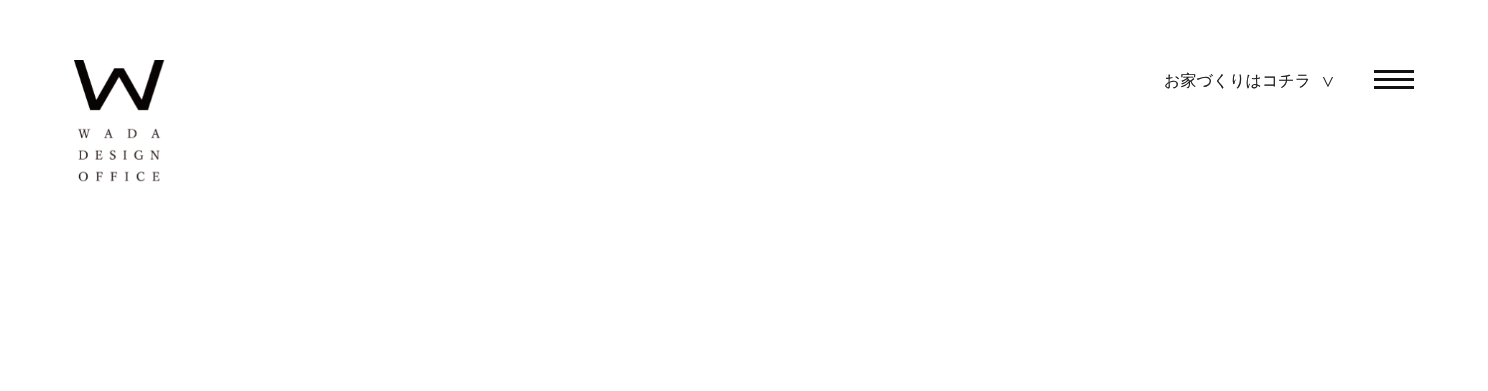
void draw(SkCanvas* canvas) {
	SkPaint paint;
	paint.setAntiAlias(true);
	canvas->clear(0xffffffff);
	canvas->drawImageRect(SkImages::DeferredFromEncodedData(SkData::MakeFromFileName("img1.png")), SkRect::MakeXYWH(74, 60, 91, 122), SkSamplingOptions());
	SkFont f1(fontMgr->matchFamilyStyle("WenQuanYi Zen Hei", SkFontStyle(500, SkFontStyle::kNormal_Width, SkFontStyle::kUpright_Slant)), 16);
	f1.setSubpixel(true);
	paint.setColor(0xff222222);
	canvas->drawString("お家づくりはコチラ", 1164, 86, f1, paint);
	SkFont f2(fontMgr->matchFamilyStyle("Liberation Serif", SkFontStyle::Normal()), 21);
	f2.setSubpixel(true);
	canvas->save();
	canvas->rotate(90, 1321, 76);
	canvas->drawString(">", 1321, 76, f2, paint);
	canvas->restore();
	paint.setColor(0xff111111);
	canvas->drawRect(SkRect::MakeXYWH(1374, 78, 40, 3), paint);
	canvas->drawRect(SkRect::MakeXYWH(1374, 70, 40, 3), paint);
	canvas->drawRect(SkRect::MakeXYWH(1374, 86, 40, 3), paint);
}
